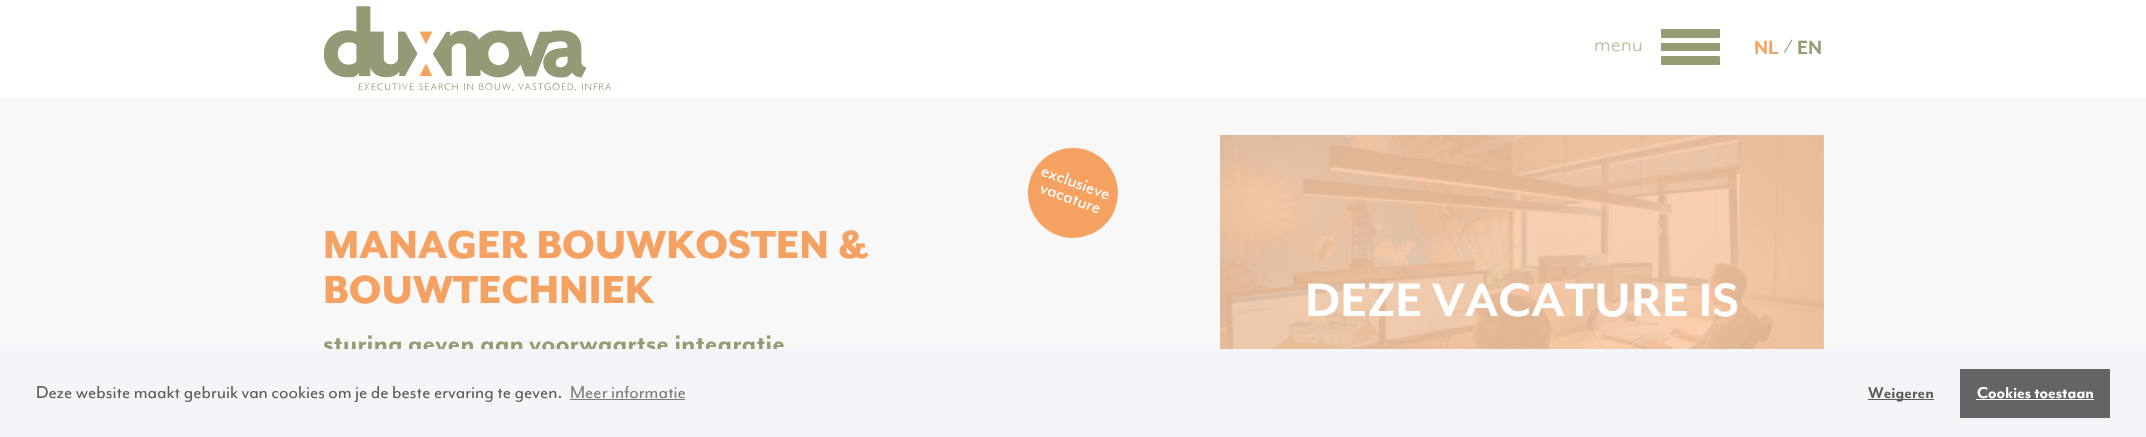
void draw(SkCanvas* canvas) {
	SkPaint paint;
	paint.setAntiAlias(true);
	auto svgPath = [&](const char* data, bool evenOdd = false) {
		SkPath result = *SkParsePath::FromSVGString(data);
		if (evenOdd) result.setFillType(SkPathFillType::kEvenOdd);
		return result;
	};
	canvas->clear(0xfff8f8f8);
	paint.setColor(0xffffffff);
	canvas->drawRect(SkRect::MakeXYWH(0, 0, 2146, 98), paint);
	canvas->drawImageRect(SkImages::DeferredFromEncodedData(SkData::MakeFromFileName("img1.png")), SkRect::MakeXYWH(324, 6, 287, 85), SkSamplingOptions());
	SkFont f1(fontMgr->matchFamilyStyle("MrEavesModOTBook", SkFontStyle::Normal()), 25);
	f1.setSubpixel(true);
	paint.setColor(0xffbabfa0);
	canvas->drawString("menu", 1594, 51, f1, paint);
	paint.setColor(0xff959b73);
	canvas->drawRoundRect(SkRect::MakeXYWH(1661, 29, 59, 9), 1, 1, paint);
	canvas->drawRoundRect(SkRect::MakeXYWH(1661, 43, 59, 8), 1, 1, paint);
	canvas->drawRoundRect(SkRect::MakeXYWH(1661, 56, 59, 9), 1, 1, paint);
	SkFont f2(fontMgr->matchFamilyStyle("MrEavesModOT", SkFontStyle::Bold()), 22);
	f2.setSubpixel(true);
	paint.setColor(0xfff4a161);
	canvas->drawString("NL", 1754, 54, f2, paint);
	paint.setColor(0xff959b73);
	canvas->drawPath(svgPath("M1791.5 39.5L1792.5 40L1785 53L1784 52.5Z"), paint);
	canvas->drawString("EN", 1797, 54, f2, paint);
	paint.setColor(0xfff9cfaf);
	canvas->drawRect(SkRect::MakeXYWH(1220, 135, 604, 214), paint);
	paint.setColor(0xfff4a161);
	canvas->drawCircle(1073, 193, 45, paint);
	SkFont f3(fontMgr->matchFamilyStyle("MrEavesModOT", SkFontStyle::Normal()), 20);
	f3.setSubpixel(true);
	paint.setColor(0xffffffff);
	canvas->save();
	canvas->rotate(20, 1040, 175);
	canvas->drawString("exclusieve", 1040, 175, f3, paint);
	canvas->restore();
	canvas->save();
	canvas->rotate(20, 1039, 192);
	canvas->drawString("vacature", 1039, 192, f3, paint);
	canvas->restore();
	SkFont f4(fontMgr->matchFamilyStyle("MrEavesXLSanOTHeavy", SkFontStyle(900, SkFontStyle::kNormal_Width, SkFontStyle::kUpright_Slant)), 45);
	f4.setSubpixel(true);
	paint.setColor(0xfff4a161);
	canvas->drawString("MANAGER BOUWKOSTEN &", 323, 258, f4, paint);
	canvas->drawString("BOUWTECHNIEK", 323, 303, f4, paint);
	SkFont f5(fontMgr->matchFamilyStyle("MrEavesModOT", SkFontStyle::Bold()), 30);
	f5.setSubpixel(true);
	paint.setColor(0xff959b73);
	canvas->drawString("sturing geven aan voorwaartse integratie", 323, 352, f5, paint);
	canvas->drawImageRect(SkImages::DeferredFromEncodedData(SkData::MakeFromFileName("img2.png")), SkRect::MakeXYWH(1220, 135, 604, 214), SkSamplingOptions());
	SkFont f6(fontMgr->matchFamilyStyle("MrEavesModOT", SkFontStyle::Bold()), 53.75);
	f6.setSubpixel(true);
	paint.setColor(0xffffffff);
	canvas->drawString("DEZE VACATURE IS", 1305, 316, f6, paint);
	paint.setColor(0xfff4f5f9);
	canvas->drawRect(SkRect::MakeXYWH(0, 349, 2146, 88), paint);
	paint.setColor(0xff5d5d5d);
	canvas->drawString("Deze website maakt gebruik van cookies om je de beste ervaring te geven.", 36, 398, f3, paint);
	paint.setColor(0xff7d7d7d);
	canvas->drawString("Meer informatie", 570, 398, f3, paint);
	canvas->drawRect(SkRect::MakeXYWH(570, 399, 115, 1), paint);
	paint.setColor(0xff5d5d5d);
	canvas->drawRect(SkRect::MakeXYWH(1868, 399, 66, 1), paint);
	SkFont f7(fontMgr->matchFamilyStyle("MrEavesModOT", SkFontStyle::Bold()), 18);
	f7.setSubpixel(true);
	canvas->drawString("Weigeren", 1868, 398, f7, paint);
	paint.setColor(0xff646464);
	canvas->drawRect(SkRect::MakeXYWH(1960, 369, 150, 49), paint);
	paint.setColor(0xffffffff);
	canvas->drawString("Cookies toestaan", 1977, 398, f7, paint);
	canvas->drawRect(SkRect::MakeXYWH(1976, 399, 118, 1), paint);
}
